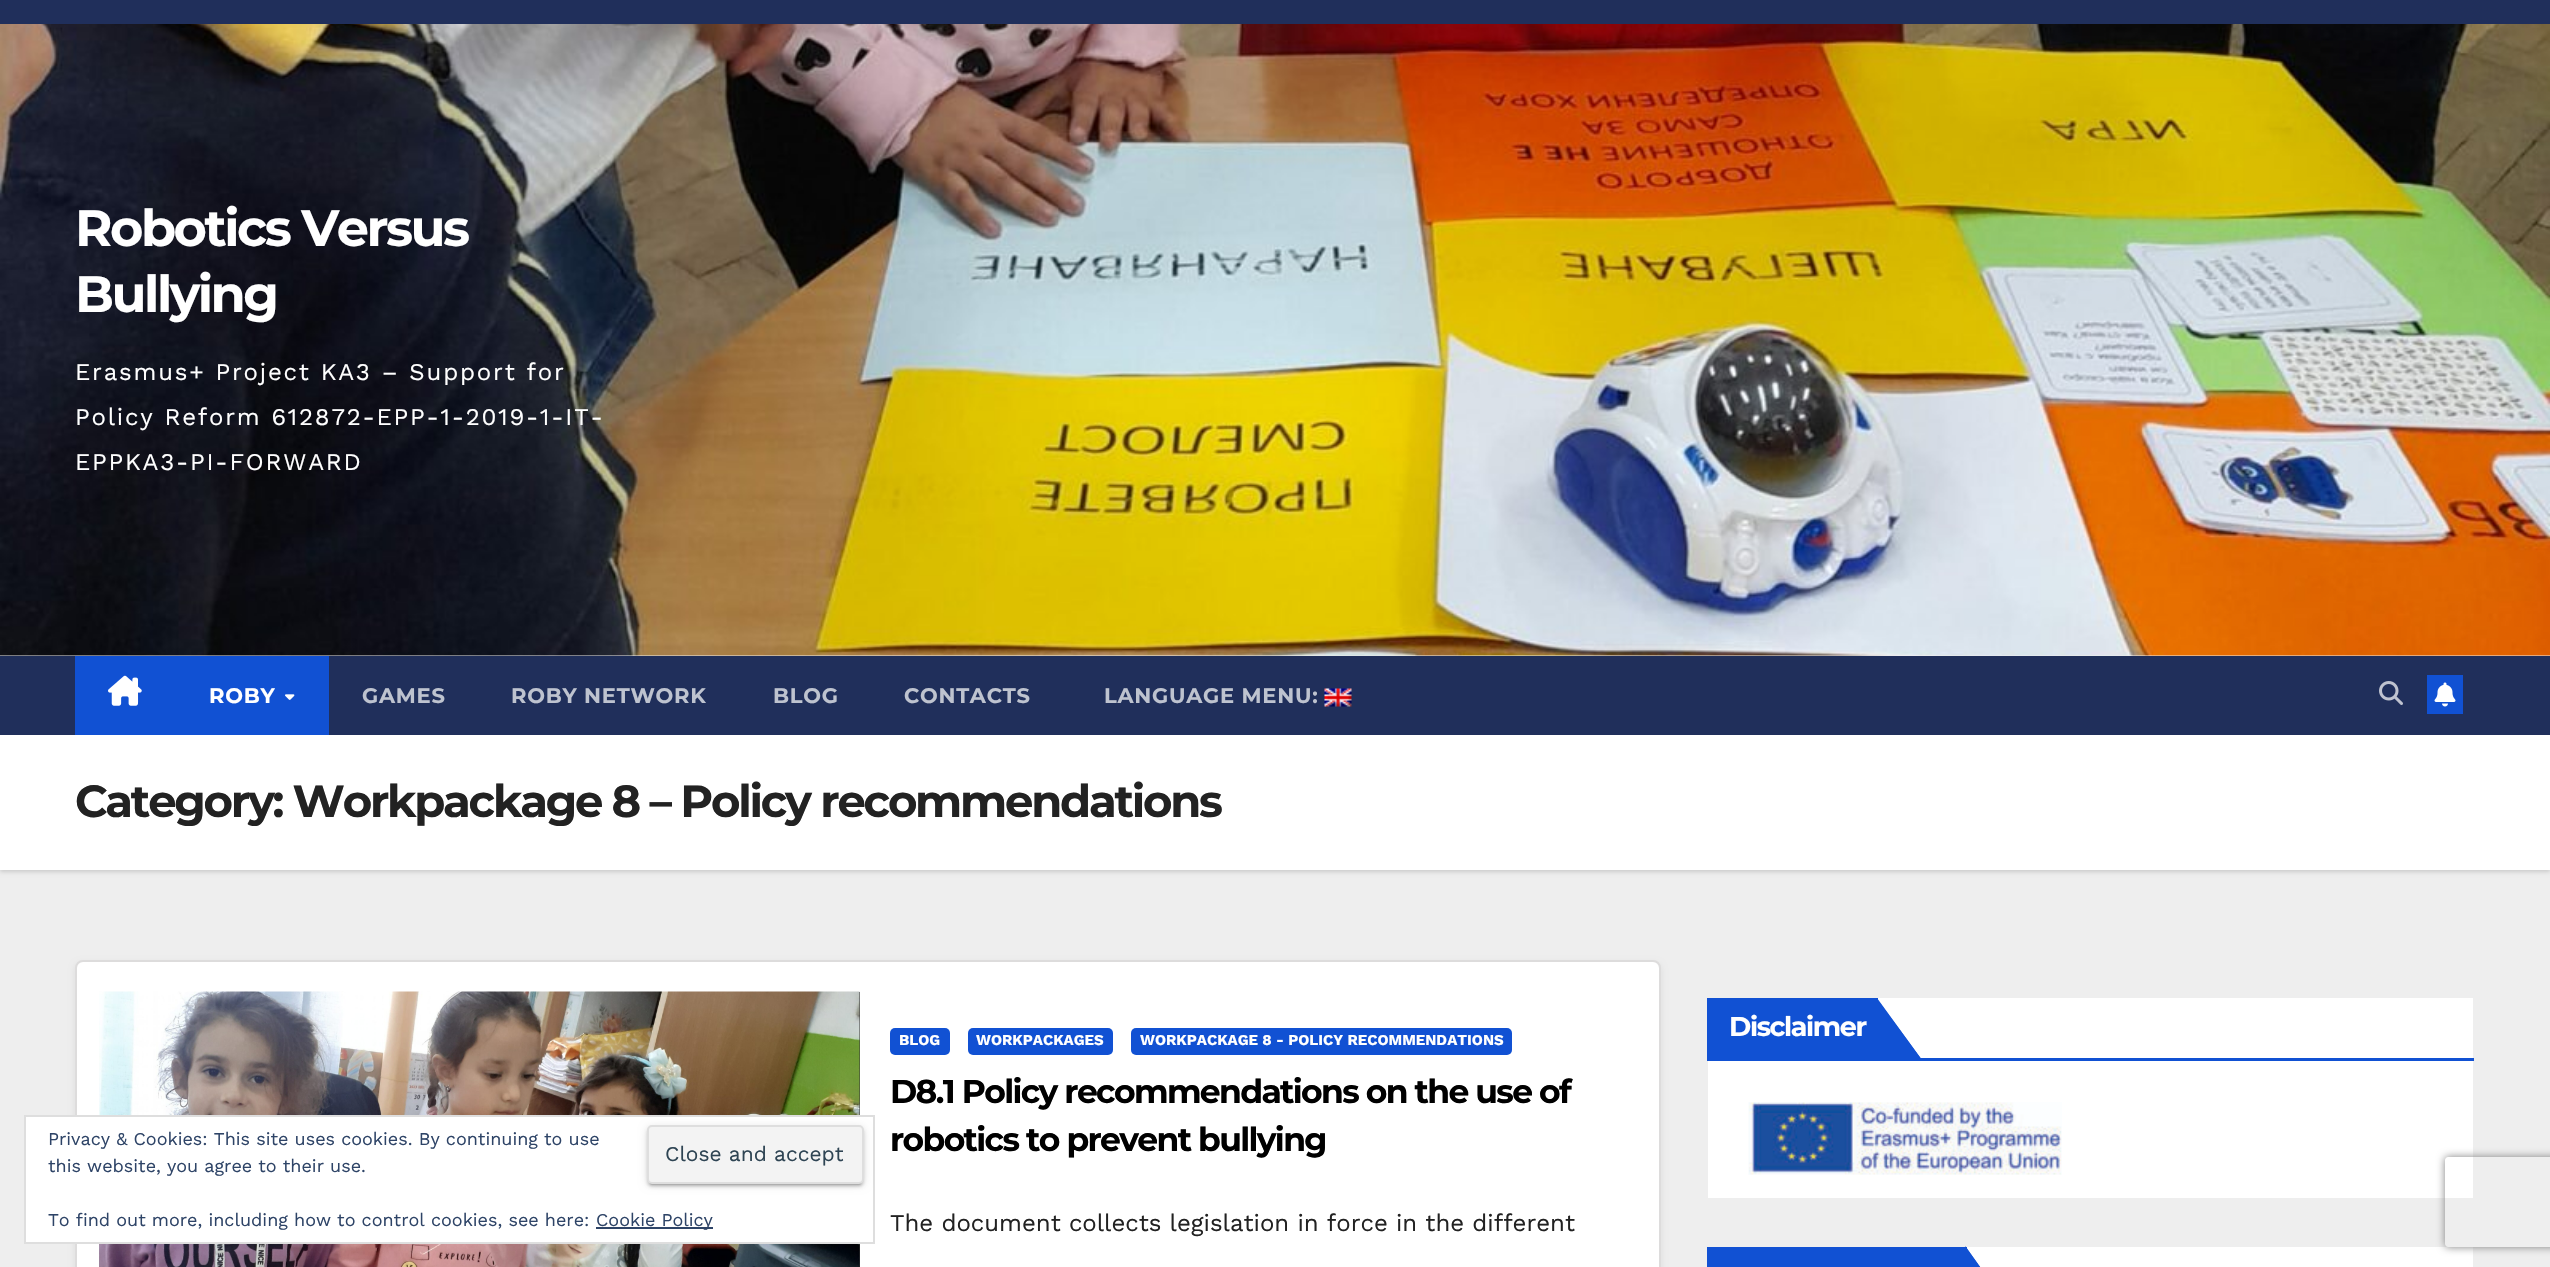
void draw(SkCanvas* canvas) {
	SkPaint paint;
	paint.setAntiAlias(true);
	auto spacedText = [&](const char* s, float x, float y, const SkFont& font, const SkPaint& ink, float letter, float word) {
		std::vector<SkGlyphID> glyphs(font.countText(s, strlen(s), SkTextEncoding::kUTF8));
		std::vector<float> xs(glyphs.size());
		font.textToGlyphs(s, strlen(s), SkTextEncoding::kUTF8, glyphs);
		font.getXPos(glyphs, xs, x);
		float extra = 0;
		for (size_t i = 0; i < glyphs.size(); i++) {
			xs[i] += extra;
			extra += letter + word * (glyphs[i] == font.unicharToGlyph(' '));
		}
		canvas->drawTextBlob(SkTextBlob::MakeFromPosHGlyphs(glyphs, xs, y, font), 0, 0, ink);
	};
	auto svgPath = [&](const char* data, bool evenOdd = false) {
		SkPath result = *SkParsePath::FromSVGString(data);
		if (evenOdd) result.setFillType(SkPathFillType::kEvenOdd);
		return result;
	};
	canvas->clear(0xffeeeeee);
	paint.setColor(0xff202f5b);
	canvas->drawRect(SkRect::MakeXYWH(0, 0, 2550, 24), paint);
	canvas->drawImageRect(SkImages::DeferredFromEncodedData(SkData::MakeFromFileName("img1.png")), SkRect::MakeXYWH(0, 24, 2550, 632), SkSamplingOptions());
	SkFont f1(fontMgr->matchFamilyStyle("Montserrat", SkFontStyle::Bold()), 51);
	f1.setSubpixel(true);
	paint.setColor(0xffffffff);
	spacedText("Robotics Versus", 75, 246, f1, paint, -2.5, 0);
	spacedText("Bullying", 75, 312, f1, paint, -2.5, 0);
	SkFont f2(fontMgr->matchFamilyStyle("Work Sans", SkFontStyle::Normal()), 24);
	f2.setSubpixel(true);
	spacedText("Erasmus+ Project KA3 – Support for", 75, 380, f2, paint, 1.8, 0);
	spacedText("Policy Reform 612872-EPP-1-2019-1-IT-", 75, 425, f2, paint, 1.8, 0);
	spacedText("EPPKA3-PI-FORWARD", 75, 470, f2, paint, 1.8, 0);
	paint.setColor(0x26000000);
	paint.setMaskFilter(SkMaskFilter::MakeBlur(kNormal_SkBlurStyle, 2));
	canvas->drawRect(SkRect::MakeXYWH(0, 737, 2550, 135), paint);
	paint.setMaskFilter(nullptr);
	paint.setColor(0xff202f5b);
	canvas->drawRect(SkRect::MakeXYWH(0, 656, 2550, 79), paint);
	paint.setColor(0xff1151d3);
	canvas->drawRect(SkRect::MakeXYWH(75, 656, 254, 79), paint);
	canvas->drawImageRect(SkImages::DeferredFromEncodedData(SkData::MakeFromFileName("img2.png")), SkRect::MakeXYWH(108, 675, 34, 31), SkSamplingOptions());
	SkFont f3(fontMgr->matchFamilyStyle("Montserrat", SkFontStyle::Bold()), 21);
	f3.setSubpixel(true);
	paint.setColor(0xffffffff);
	spacedText("ROBY", 209, 703, f3, paint, 0.75, 0);
	canvas->drawImageRect(SkImages::DeferredFromEncodedData(SkData::MakeFromFileName("img3.png")), SkRect::MakeXYWH(285, 694, 10, 6), SkSamplingOptions());
	paint.setColor(0xffbec3cf);
	spacedText("GAMES", 362, 703, f3, paint, 0.75, 0);
	spacedText("ROBY NETWORK", 511, 703, f3, paint, 0.75, 0);
	spacedText("BLOG", 773, 703, f3, paint, 0.75, 0);
	spacedText("CONTACTS", 904, 703, f3, paint, 0.75, 0);
	spacedText("LANGUAGE MENU:", 1104, 703, f3, paint, 0.75, 0);
	canvas->drawImageRect(SkImages::DeferredFromEncodedData(SkData::MakeFromFileName("img4.png")), SkRect::MakeXYWH(1324, 688, 28, 19), SkSamplingOptions());
	canvas->drawImageRect(SkImages::DeferredFromEncodedData(SkData::MakeFromFileName("img5.png")), SkRect::MakeXYWH(2379, 681, 24, 24), SkSamplingOptions());
	paint.setColor(0xff1151d3);
	canvas->drawRect(SkRect::MakeXYWH(2427, 675, 36, 39), paint);
	canvas->drawImageRect(SkImages::DeferredFromEncodedData(SkData::MakeFromFileName("img6.png")), SkRect::MakeXYWH(2434, 682, 22, 25), SkSamplingOptions());
	paint.setColor(0xffffffff);
	canvas->drawRect(SkRect::MakeXYWH(0, 735, 2550, 135), paint);
	SkFont f4(fontMgr->matchFamilyStyle("Montserrat", SkFontStyle::Bold()), 45);
	f4.setSubpixel(true);
	paint.setColor(0xff222222);
	spacedText("Category: Workpackage 8 – Policy recommendations", 75, 817, f4, paint, -2.25, 0);
	paint.setColor(0xffffffff);
	canvas->drawRect(SkRect::MakeXYWH(1708, 998, 765, 200), paint);
	paint.setColor(0xff1151d3);
	canvas->drawRect(SkRect::MakeXYWH(1707, 1058, 767, 3), paint);
	canvas->drawRect(SkRect::MakeXYWH(1707, 998, 171, 60), paint);
	SkFont f5(fontMgr->matchFamilyStyle("Montserrat", SkFontStyle::Bold()), 27);
	f5.setSubpixel(true);
	paint.setColor(0xffffffff);
	spacedText("Disclaimer", 1729, 1036, f5, paint, -1.4, 0);
	paint.setColor(0xff1151d3);
	canvas->drawPath(svgPath("M1877 998V1060H1922Z"), paint);
	canvas->drawPath(svgPath("M1897 1026L1877 999V1060H1922Z"), paint);
	canvas->drawImageRect(SkImages::DeferredFromEncodedData(SkData::MakeFromFileName("img7.png")), SkRect::MakeXYWH(1748, 1102, 314, 73), SkSamplingOptions());
	paint.setColor(0xffffffff);
	canvas->drawRect(SkRect::MakeXYWH(1967, 1247, 506, 20), paint);
	paint.setColor(0xff1151d3);
	canvas->drawRect(SkRect::MakeXYWH(1707, 1247, 260, 20), paint);
	canvas->drawPath(svgPath("M1965 1247V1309H2010L1966 1247Z"), paint);
	canvas->drawPath(svgPath("M1965 1246V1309H2010Z"), paint);
	paint.setColor(0x14000000);
	paint.setMaskFilter(SkMaskFilter::MakeBlur(kNormal_SkBlurStyle, 3));
	canvas->drawRoundRect(SkRect::MakeXYWH(75, 963, 1586, 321), 8, 8, paint);
	paint.setMaskFilter(nullptr);
	paint.setColor(0xffffffff);
	canvas->drawRoundRect(SkRect::MakeXYWH(76, 961, 1584, 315), 7, 7, paint);
	paint.setStroke(true);
	paint.setStrokeWidth(2);
	paint.setColor(0xffdddcdc);
	canvas->drawRoundRect(SkRect::MakeXYWH(76, 961, 1584, 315), 7, 7, paint);
	paint.setStroke(false);
	paint.setColor(0xff333333);
	canvas->drawRect(SkRect::MakeXYWH(859, 992, 1, 275), paint);
	canvas->drawImageRect(SkImages::DeferredFromEncodedData(SkData::MakeFromFileName("img8.png")), SkRect::MakeXYWH(99, 991, 761, 276), SkSamplingOptions());
	paint.setColor(0xff1151d3);
	canvas->drawRoundRect(SkRect::MakeXYWH(890, 1028, 60, 27), 5, 5, paint);
	SkFont f6(fontMgr->matchFamilyStyle("Work Sans", SkFontStyle::Bold()), 15);
	f6.setSubpixel(true);
	paint.setColor(0xffffffff);
	canvas->drawString("BLOG", 899, 1045, f6, paint);
	paint.setColor(0xff1151d3);
	canvas->drawRoundRect(SkRect::MakeXYWH(968, 1028, 145, 27), 5, 5, paint);
	paint.setColor(0xffffffff);
	canvas->drawString("WORKPACKAGES", 976, 1045, f6, paint);
	paint.setColor(0xff1151d3);
	canvas->drawRoundRect(SkRect::MakeXYWH(1131, 1028, 381, 27), 5, 5, paint);
	paint.setColor(0xffffffff);
	canvas->drawString("WORKPACKAGE 8 - POLICY RECOMMENDATIONS", 1140, 1045, f6, paint);
	SkFont f7(fontMgr->matchFamilyStyle("Montserrat", SkFontStyle::Bold()), 33);
	f7.setSubpixel(true);
	paint.setColor(0xff000000);
	spacedText("D8.1 Policy recommendations on the use of", 890, 1103, f7, paint, -1.65, 0);
	spacedText("robotics to prevent bullying", 890, 1151, f7, paint, -1.65, 0);
	paint.setColor(0xff222222);
	canvas->drawString("The document collects legislation in force in the different", 890, 1231, f2, paint);
	paint.setColor(0xffffffff);
	canvas->drawRect(SkRect::MakeXYWH(26, 1117, 834, 125), paint);
	paint.setStroke(true);
	paint.setColor(0xffdedede);
	canvas->drawRect(SkRect::MakeXYWH(25, 1116, 849, 127), paint);
	SkFont f8(fontMgr->matchFamilyStyle("Work Sans", SkFontStyle::Normal()), 18);
	f8.setSubpixel(true);
	paint.setStroke(false);
	paint.setColor(0xff2e4467);
	canvas->drawString("Privacy & Cookies: This site uses cookies. By continuing to use", 48, 1145, f8, paint);
	canvas->drawString("this website, you agree to their use.", 48, 1172, f8, paint);
	paint.setColor(0x1f000000);
	paint.setMaskFilter(SkMaskFilter::MakeBlur(kNormal_SkBlurStyle, 4));
	canvas->drawRoundRect(SkRect::MakeXYWH(647, 1127, 217, 58), 5, 5, paint);
	paint.setMaskFilter(nullptr);
	paint.setColor(0x33000000);
	paint.setMaskFilter(SkMaskFilter::MakeBlur(kNormal_SkBlurStyle, 1));
	canvas->drawRoundRect(SkRect::MakeXYWH(650, 1133, 211, 52), 1.5, 1.5, paint);
	paint.setMaskFilter(nullptr);
	paint.setColor(0x24000000);
	paint.setMaskFilter(SkMaskFilter::MakeBlur(kNormal_SkBlurStyle, 1.5));
	canvas->drawRoundRect(SkRect::MakeXYWH(647, 1128, 217, 59), 5, 5, paint);
	paint.setMaskFilter(nullptr);
	paint.setColor(0xfff3f3f3);
	canvas->drawRoundRect(SkRect::MakeXYWH(648, 1126, 215, 57), 4, 4, paint);
	paint.setStroke(true);
	paint.setColor(0xffdedede);
	canvas->drawRoundRect(SkRect::MakeXYWH(648, 1126, 215, 57), 4, 4, paint);
	SkFont f9(fontMgr->matchFamilyStyle("Work Sans", SkFontStyle::Normal()), 21);
	f9.setSubpixel(true);
	paint.setStroke(false);
	paint.setColor(0xff2e4453);
	canvas->drawString("Close and accept", 665, 1161, f9, paint);
	paint.setColor(0xff2e4467);
	canvas->drawString("To find out more, including how to control cookies, see here:", 48, 1226, f8, paint);
	canvas->drawRect(SkRect::MakeXYWH(596, 1227, 117, 2), paint);
	canvas->drawString("Cookie Policy", 596, 1226, f8, paint);
	canvas->save();
	canvas->clipPath(svgPath("M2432 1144H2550V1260H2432ZM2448 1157H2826C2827.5 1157 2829 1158.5 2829 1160V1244C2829 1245.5 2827.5 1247 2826 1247H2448C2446.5 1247 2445 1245.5 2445 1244V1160C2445 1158.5 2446.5 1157 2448 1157Z", true), true);
	paint.setColor(0xff808080);
	paint.setMaskFilter(SkMaskFilter::MakeBlur(kNormal_SkBlurStyle, 4));
	canvas->drawRoundRect(SkRect::MakeXYWH(2445, 1157, 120, 90), 3, 3, paint);
	paint.setMaskFilter(nullptr);
	canvas->restore();
}
